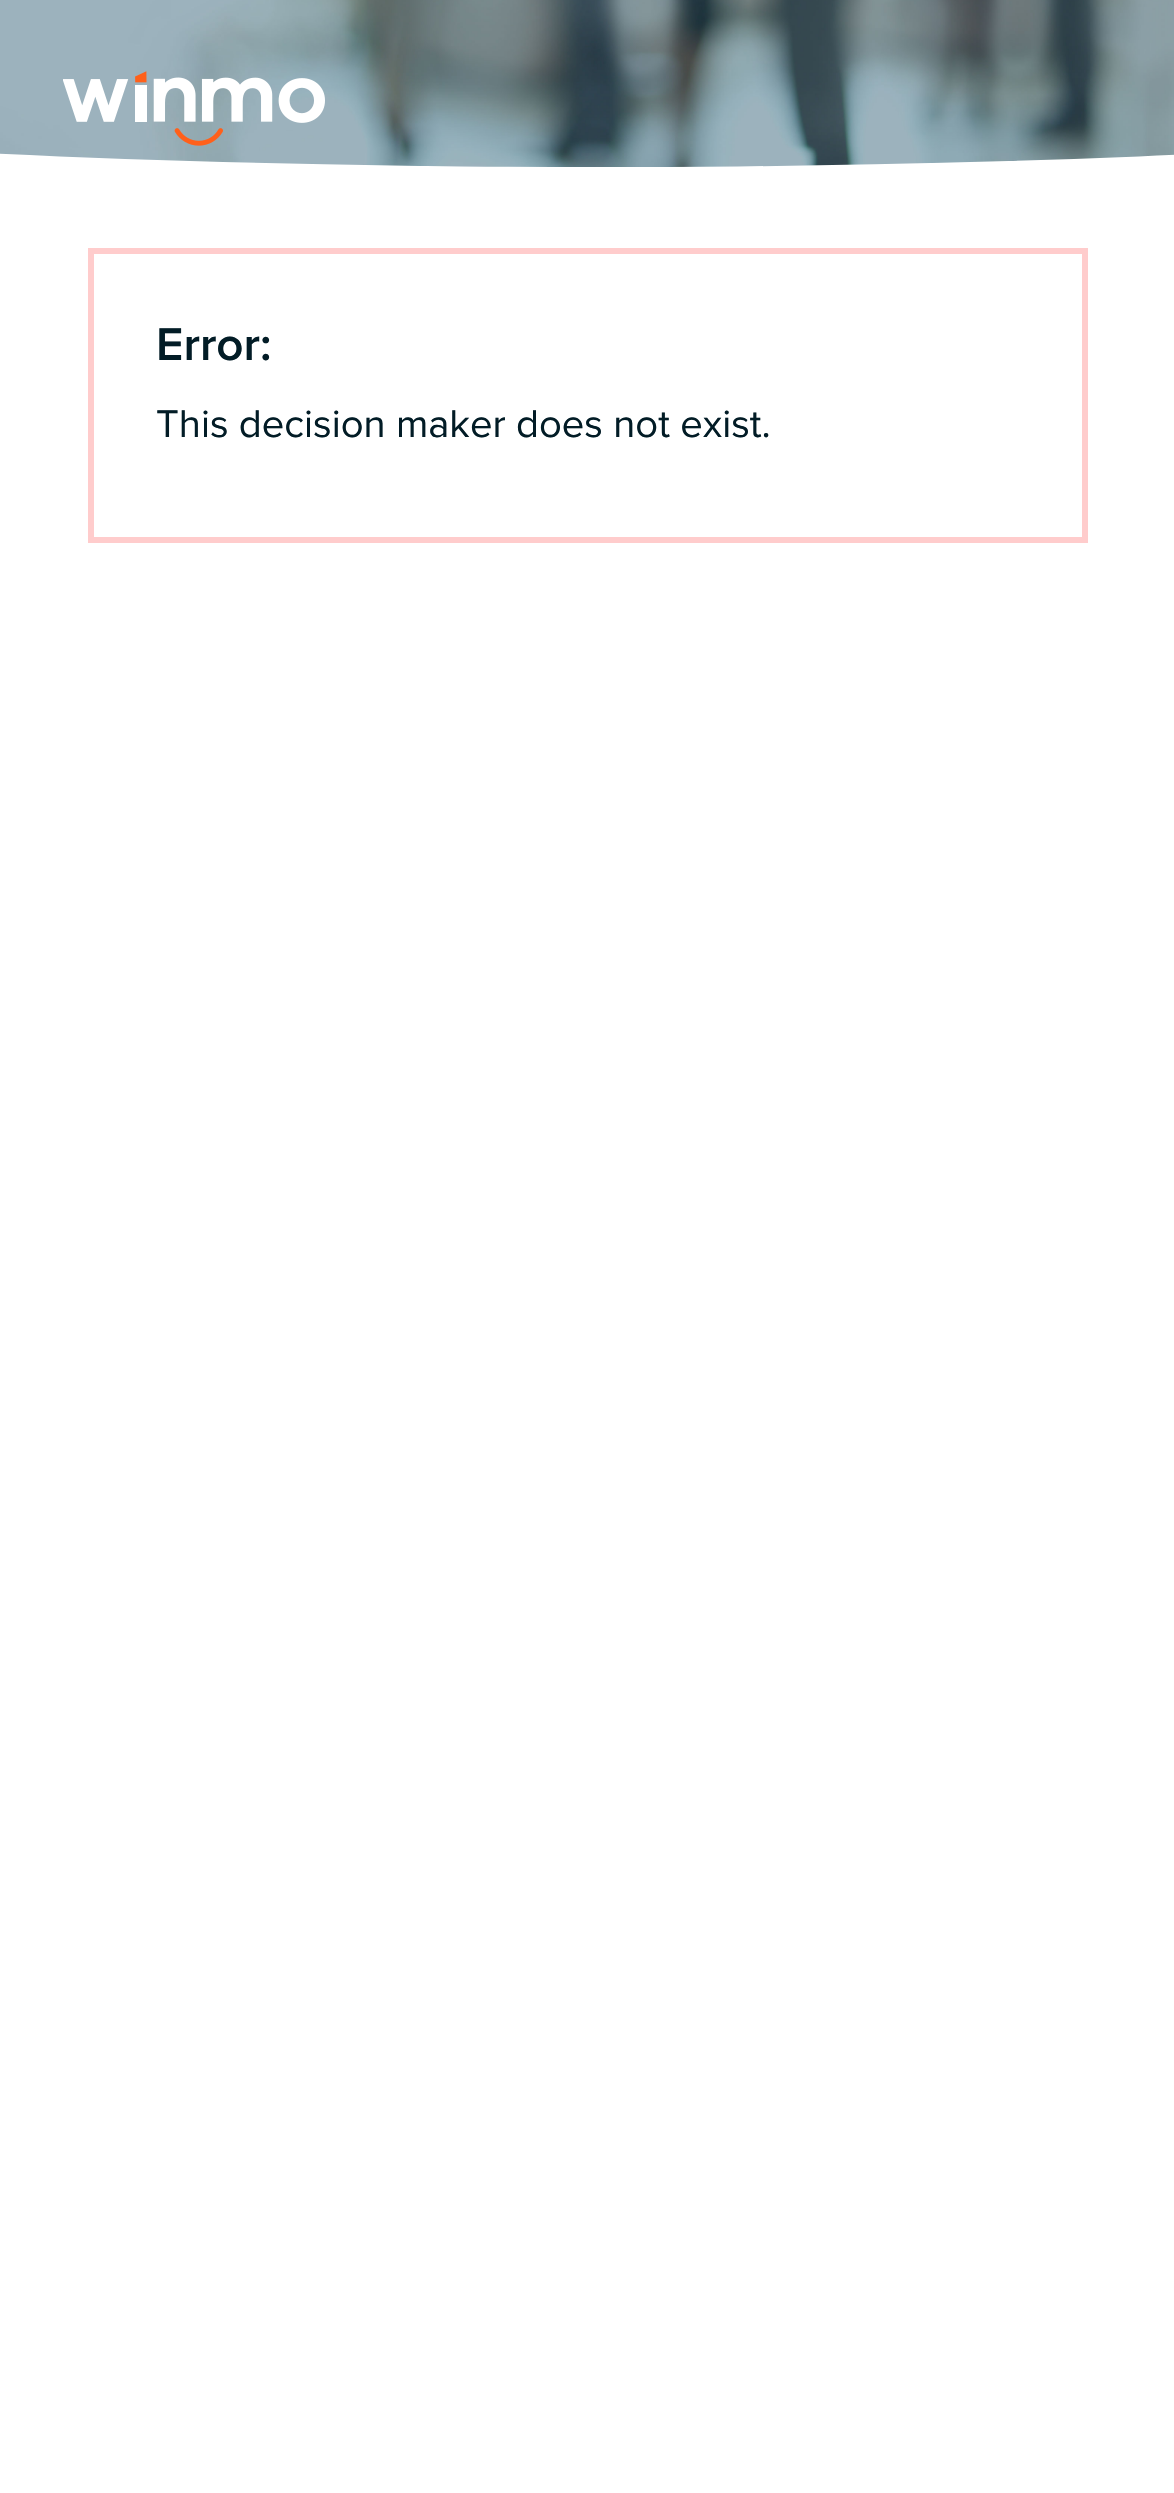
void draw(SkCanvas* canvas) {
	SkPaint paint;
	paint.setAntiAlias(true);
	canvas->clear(0xffffffff);
	canvas->drawImageRect(SkImages::DeferredFromEncodedData(SkData::MakeFromFileName("img2.png")), SkRect::MakeXYWH(0, 0, 1174, 167), SkSamplingOptions());
	canvas->drawImageRect(SkImages::DeferredFromEncodedData(SkData::MakeFromFileName("img1.png")), SkRect::MakeXYWH(63, 71, 262, 75), SkSamplingOptions());
	paint.setStroke(true);
	paint.setStrokeWidth(6);
	paint.setColor(0xffffcccc);
	canvas->drawRect(SkRect::MakeXYWH(91, 251, 994, 289), paint);
	SkFont f1(fontMgr->matchFamilyStyle("Proxima Nova", SkFontStyle(600, SkFontStyle::kNormal_Width, SkFontStyle::kUpright_Slant)), 47.5);
	f1.setSubpixel(true);
	paint.setStroke(false);
	paint.setColor(0xff021c26);
	canvas->drawString("Error:", 156, 360, f1, paint);
	SkFont f2(fontMgr->matchFamilyStyle("Proxima Nova", SkFontStyle::Normal()), 40);
	f2.setSubpixel(true);
	canvas->drawString("This decision maker does not exist.", 156, 437, f2, paint);
}
